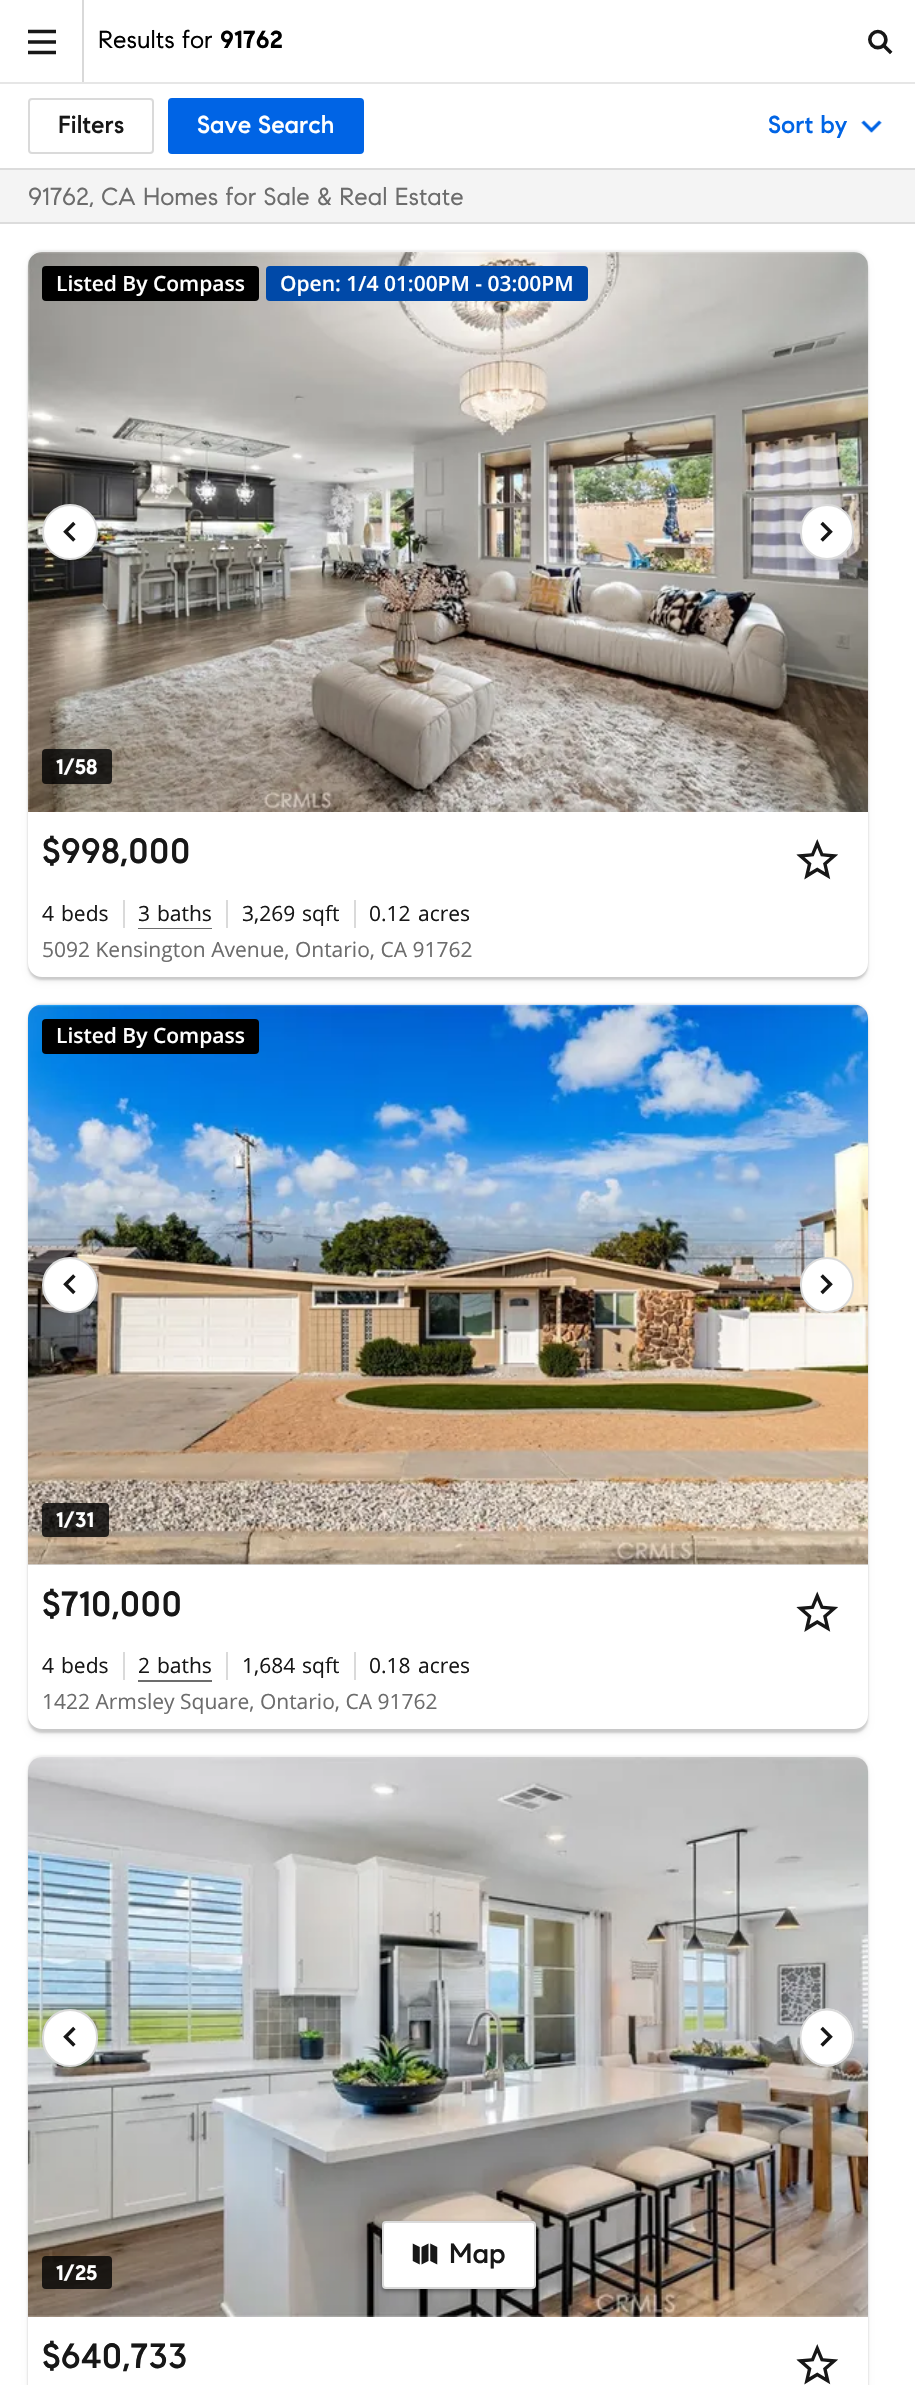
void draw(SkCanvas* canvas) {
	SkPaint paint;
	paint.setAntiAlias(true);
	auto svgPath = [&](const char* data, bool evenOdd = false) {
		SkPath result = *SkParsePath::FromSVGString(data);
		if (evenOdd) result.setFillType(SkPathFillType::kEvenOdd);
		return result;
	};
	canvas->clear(0xffffffff);
	paint.setColor(0xffe6e6e6);
	canvas->drawRect(SkRect::MakeXYWH(0, 82, 915, 2), paint);
	paint.setColor(0xffd9d9d9);
	canvas->drawRect(SkRect::MakeXYWH(82, 0, 2, 82), paint);
	canvas->drawImageRect(SkImages::DeferredFromEncodedData(SkData::MakeFromFileName("img1.png")), SkRect::MakeXYWH(28, 29, 28, 26), SkSamplingOptions());
	SkFont f1(fontMgr->matchFamilyStyle("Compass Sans", SkFontStyle::Normal()), 24.5);
	f1.setSubpixel(true);
	paint.setColor(0xff000000);
	canvas->drawString("Results for", 98, 48, f1, paint);
	SkFont f2(fontMgr->matchFamilyStyle("Compass Sans", SkFontStyle::Bold()), 24.5);
	f2.setSubpixel(true);
	canvas->drawString("91762", 220, 48, f2, paint);
	canvas->drawImageRect(SkImages::DeferredFromEncodedData(SkData::MakeFromFileName("img2.png")), SkRect::MakeXYWH(868, 29, 25, 26), SkSamplingOptions());
	paint.setStroke(true);
	paint.setStrokeWidth(2);
	paint.setColor(0xffdadada);
	canvas->drawRoundRect(SkRect::MakeXYWH(29, 99, 124, 54), 3, 3, paint);
	SkFont f3(fontMgr->matchFamilyStyle("Compass Sans", SkFontStyle(500, SkFontStyle::kNormal_Width, SkFontStyle::kUpright_Slant)), 24.5);
	f3.setSubpixel(true);
	paint.setStroke(false);
	paint.setColor(0xff171717);
	canvas->drawString("Filters", 58, 133, f3, paint);
	paint.setColor(0xff0064e5);
	canvas->drawRoundRect(SkRect::MakeXYWH(169, 99, 194, 54), 3, 3, paint);
	paint.setStroke(true);
	canvas->drawRoundRect(SkRect::MakeXYWH(169, 99, 194, 54), 3, 3, paint);
	paint.setStroke(false);
	paint.setColor(0xffffffff);
	canvas->drawString("Save Search", 197, 133, f3, paint);
	paint.setColor(0xff0064e5);
	canvas->drawString("Sort by", 768, 133, f3, paint);
	canvas->drawImageRect(SkImages::DeferredFromEncodedData(SkData::MakeFromFileName("img3.png")), SkRect::MakeXYWH(861, 120, 21, 13), SkSamplingOptions());
	paint.setColor(0xfff4f4f4);
	canvas->drawRect(SkRect::MakeXYWH(0, 170, 915, 52), paint);
	paint.setColor(0xffdcdcdc);
	canvas->drawRect(SkRect::MakeXYWH(0, 168, 915, 2), paint);
	canvas->drawRect(SkRect::MakeXYWH(0, 222, 915, 2), paint);
	paint.setColor(0xff6c6c6c);
	canvas->drawString("91762, CA Homes for Sale & Real Estate", 28, 205, f1, paint);
	paint.setColor(0x0f000000);
	paint.setMaskFilter(SkMaskFilter::MakeBlur(kNormal_SkBlurStyle, 1));
	canvas->drawRoundRect(SkRect::MakeXYWH(28, 250, 840, 725), 14, 14, paint);
	paint.setMaskFilter(nullptr);
	paint.setColor(0x24000000);
	paint.setMaskFilter(SkMaskFilter::MakeBlur(kNormal_SkBlurStyle, 1));
	canvas->drawRoundRect(SkRect::MakeXYWH(28, 256, 840, 724), 14, 14, paint);
	paint.setMaskFilter(nullptr);
	paint.setColor(0x1a000000);
	paint.setMaskFilter(SkMaskFilter::MakeBlur(kNormal_SkBlurStyle, 3.5));
	canvas->drawRoundRect(SkRect::MakeXYWH(30, 259, 836, 721), 12, 12, paint);
	paint.setMaskFilter(nullptr);
	paint.setColor(0xffffffff);
	canvas->drawRoundRect(SkRect::MakeXYWH(28, 252, 840, 725), 14, 14, paint);
	canvas->drawImageRect(SkImages::DeferredFromEncodedData(SkData::MakeFromFileName("img4.png")), SkRect::MakeXYWH(28, 252, 840, 560), SkSamplingOptions());
	paint.setColor(0xff000000);
	canvas->drawRoundRect(SkRect::MakeXYWH(42, 266, 217, 35), 4, 4, paint);
	SkFont f4(fontMgr->matchFamilyStyle("Open Sans", SkFontStyle(600, SkFontStyle::kNormal_Width, SkFontStyle::kUpright_Slant)), 21);
	f4.setSubpixel(true);
	paint.setColor(0xffffffff);
	canvas->drawString("Listed By Compass", 56, 291, f4, paint);
	paint.setColor(0xff0049a8);
	canvas->drawRoundRect(SkRect::MakeXYWH(266, 266, 322, 35), 4, 4, paint);
	paint.setColor(0xffffffff);
	canvas->drawString("Open: 1/4 01:00PM - 03:00PM", 280, 291, f4, paint);
	canvas->drawCircle(70, 532, 27, paint);
	paint.setStroke(true);
	paint.setColor(0xffdadada);
	canvas->drawCircle(70, 532, 27, paint);
	canvas->drawImageRect(SkImages::DeferredFromEncodedData(SkData::MakeFromFileName("img5.png")), SkRect::MakeXYWH(63, 521, 13, 21), SkSamplingOptions());
	paint.setStroke(false);
	paint.setColor(0xffffffff);
	canvas->drawRoundRect(SkRect::MakeXYWH(801, 505, 52, 54), 26, 26, paint);
	paint.setStroke(true);
	paint.setColor(0xffdadada);
	canvas->drawRoundRect(SkRect::MakeXYWH(801, 505, 52, 54), 26, 26, paint);
	canvas->drawImageRect(SkImages::DeferredFromEncodedData(SkData::MakeFromFileName("img6.png")), SkRect::MakeXYWH(820, 521, 13, 21), SkSamplingOptions());
	paint.setStroke(false);
	paint.setColor(0xcc000000);
	canvas->drawRoundRect(SkRect::MakeXYWH(42, 749, 70, 35), 4, 4, paint);
	SkFont f5(fontMgr->matchFamilyStyle("Compass Sans", SkFontStyle::Bold()), 21);
	f5.setSubpixel(true);
	paint.setColor(0xffffffff);
	canvas->drawString("1/58", 56, 774, f5, paint);
	SkFont f6(fontMgr->matchFamilyStyle("Compass Sans", SkFontStyle(500, SkFontStyle::kNormal_Width, SkFontStyle::kUpright_Slant)), 35);
	f6.setSubpixel(true);
	paint.setColor(0xff171717);
	canvas->drawString("$998,000", 42, 863, f6, paint);
	canvas->drawImageRect(SkImages::DeferredFromEncodedData(SkData::MakeFromFileName("img7.png")), SkRect::MakeXYWH(796, 839, 42, 41), SkSamplingOptions());
	SkFont f7(fontMgr->matchFamilyStyle("Open Sans", SkFontStyle::Normal()), 21);
	f7.setSubpixel(true);
	canvas->drawString("4", 42, 921, f7, paint);
	canvas->drawString("beds", 61, 921, f7, paint);
	paint.setColor(0xffdadada);
	canvas->drawRect(SkRect::MakeXYWH(123, 900, 2, 28), paint);
	paint.setColor(0xff6c6c6c);
	canvas->drawRect(SkRect::MakeXYWH(138, 928, 74, 1), paint);
	paint.setColor(0xff171717);
	canvas->drawString("3", 138, 921, f7, paint);
	canvas->drawString("baths", 157, 921, f7, paint);
	paint.setColor(0xffdadada);
	canvas->drawRect(SkRect::MakeXYWH(226, 900, 2, 28), paint);
	paint.setColor(0xff171717);
	canvas->drawString("3,269", 242, 921, f7, paint);
	canvas->drawString("sqft", 302, 921, f7, paint);
	paint.setColor(0xffdadada);
	canvas->drawRect(SkRect::MakeXYWH(354, 900, 2, 28), paint);
	paint.setColor(0xff171717);
	canvas->drawString("0.12", 369, 921, f7, paint);
	canvas->drawString("acres", 418, 921, f7, paint);
	paint.setColor(0xff6c6c6c);
	canvas->drawString("5092 Kensington Avenue, Ontario, CA 91762", 42, 957, f7, paint);
	paint.setColor(0x0f000000);
	paint.setMaskFilter(SkMaskFilter::MakeBlur(kNormal_SkBlurStyle, 1));
	canvas->drawRoundRect(SkRect::MakeXYWH(28, 1003, 840, 724), 14, 14, paint);
	paint.setMaskFilter(nullptr);
	paint.setColor(0x24000000);
	paint.setMaskFilter(SkMaskFilter::MakeBlur(kNormal_SkBlurStyle, 1));
	canvas->drawRoundRect(SkRect::MakeXYWH(28, 1008, 840, 725), 14, 14, paint);
	paint.setMaskFilter(nullptr);
	paint.setColor(0x1a000000);
	paint.setMaskFilter(SkMaskFilter::MakeBlur(kNormal_SkBlurStyle, 3.5));
	canvas->drawRoundRect(SkRect::MakeXYWH(30, 1012, 836, 721), 12, 12, paint);
	paint.setMaskFilter(nullptr);
	paint.setColor(0xffffffff);
	canvas->drawRoundRect(SkRect::MakeXYWH(28, 1005, 840, 724), 14, 14, paint);
	paint.setColor(0xffdadada);
	canvas->drawPath(svgPath("M42 1005H854C861.5 1005 868 1011.5 868 1019V1565H28V1019C28 1011.5 34.5 1005 42 1005Z"), paint);
	canvas->drawImageRect(SkImages::DeferredFromEncodedData(SkData::MakeFromFileName("img8.png")), SkRect::MakeXYWH(28, 1004, 840, 561), SkSamplingOptions());
	paint.setColor(0xff000000);
	canvas->drawRoundRect(SkRect::MakeXYWH(42, 1019, 217, 35), 4, 4, paint);
	paint.setColor(0xffffffff);
	canvas->drawString("Listed By Compass", 56, 1043, f4, paint);
	canvas->drawCircle(70, 1285, 27, paint);
	paint.setStroke(true);
	paint.setColor(0xffdadada);
	canvas->drawCircle(70, 1285, 27, paint);
	canvas->drawImageRect(SkImages::DeferredFromEncodedData(SkData::MakeFromFileName("img9.png")), SkRect::MakeXYWH(63, 1274, 13, 21), SkSamplingOptions());
	paint.setStroke(false);
	paint.setColor(0xffffffff);
	canvas->drawRoundRect(SkRect::MakeXYWH(801, 1258, 52, 54), 26, 26, paint);
	paint.setStroke(true);
	paint.setColor(0xffdadada);
	canvas->drawRoundRect(SkRect::MakeXYWH(801, 1258, 52, 54), 26, 26, paint);
	canvas->drawImageRect(SkImages::DeferredFromEncodedData(SkData::MakeFromFileName("img10.png")), SkRect::MakeXYWH(820, 1274, 13, 21), SkSamplingOptions());
	paint.setStroke(false);
	paint.setColor(0xcc000000);
	canvas->drawRoundRect(SkRect::MakeXYWH(42, 1503, 67, 34), 4, 4, paint);
	paint.setColor(0xffffffff);
	canvas->drawString("1/31", 56, 1527, f5, paint);
	paint.setColor(0xff171717);
	canvas->drawString("$710,000", 42, 1616, f6, paint);
	canvas->drawImageRect(SkImages::DeferredFromEncodedData(SkData::MakeFromFileName("img11.png")), SkRect::MakeXYWH(796, 1591, 42, 41), SkSamplingOptions());
	canvas->drawString("4", 42, 1673, f7, paint);
	canvas->drawString("beds", 61, 1673, f7, paint);
	paint.setColor(0xffdadada);
	canvas->drawRect(SkRect::MakeXYWH(123, 1652, 2, 28), paint);
	paint.setColor(0xff6c6c6c);
	canvas->drawRect(SkRect::MakeXYWH(138, 1680, 74, 2), paint);
	paint.setColor(0xff171717);
	canvas->drawString("2", 138, 1673, f7, paint);
	canvas->drawString("baths", 157, 1673, f7, paint);
	paint.setColor(0xffdadada);
	canvas->drawRect(SkRect::MakeXYWH(226, 1652, 2, 28), paint);
	paint.setColor(0xff171717);
	canvas->drawString("1,684", 242, 1673, f7, paint);
	canvas->drawString("sqft", 302, 1673, f7, paint);
	paint.setColor(0xffdadada);
	canvas->drawRect(SkRect::MakeXYWH(354, 1652, 2, 28), paint);
	paint.setColor(0xff171717);
	canvas->drawString("0.18", 369, 1673, f7, paint);
	canvas->drawString("acres", 418, 1673, f7, paint);
	paint.setColor(0xff6c6c6c);
	canvas->drawString("1422 Armsley Square, Ontario, CA 91762", 42, 1709, f7, paint);
	paint.setColor(0x0f000000);
	paint.setMaskFilter(SkMaskFilter::MakeBlur(kNormal_SkBlurStyle, 1));
	canvas->drawRoundRect(SkRect::MakeXYWH(28, 1755, 840, 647), 14, 14, paint);
	paint.setMaskFilter(nullptr);
	paint.setColor(0x24000000);
	paint.setMaskFilter(SkMaskFilter::MakeBlur(kNormal_SkBlurStyle, 1));
	canvas->drawRoundRect(SkRect::MakeXYWH(28, 1761, 840, 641), 14, 14, paint);
	paint.setMaskFilter(nullptr);
	paint.setColor(0x1a000000);
	paint.setMaskFilter(SkMaskFilter::MakeBlur(kNormal_SkBlurStyle, 3.5));
	canvas->drawRoundRect(SkRect::MakeXYWH(30, 1764, 836, 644), 12, 12, paint);
	paint.setMaskFilter(nullptr);
	paint.setColor(0xffffffff);
	canvas->drawPath(svgPath("M42 1757H854C861.5 1757 868 1763.5 868 1771V2385H28V1771C28 1763.5 34.5 1757 42 1757Z"), paint);
	canvas->drawImageRect(SkImages::DeferredFromEncodedData(SkData::MakeFromFileName("img12.png")), SkRect::MakeXYWH(28, 1757, 840, 560), SkSamplingOptions());
	canvas->drawRoundRect(SkRect::MakeXYWH(43, 2010, 54, 56), 27, 27, paint);
	paint.setStroke(true);
	paint.setColor(0xffdadada);
	canvas->drawRoundRect(SkRect::MakeXYWH(43, 2010, 54, 56), 27, 27, paint);
	canvas->drawImageRect(SkImages::DeferredFromEncodedData(SkData::MakeFromFileName("img13.png")), SkRect::MakeXYWH(63, 2026, 13, 21), SkSamplingOptions());
	paint.setStroke(false);
	paint.setColor(0xffffffff);
	canvas->drawOval(SkRect::MakeXYWH(800, 2008.5, 54, 58), paint);
	paint.setStroke(true);
	paint.setStrokeWidth(1.8);
	paint.setColor(0xffdadada);
	canvas->drawPath(svgPath("M827 2009.5C841.5 2009.5 853 2022 853 2037.5C853 2053 841.5 2065.5 827 2065.5C812.5 2065.5 800.5 2053 800.5 2037.5C800.5 2022 812.5 2009.5 827 2009.5Z"), paint);
	canvas->drawImageRect(SkImages::DeferredFromEncodedData(SkData::MakeFromFileName("img14.png")), SkRect::MakeXYWH(820, 2026, 13, 21), SkSamplingOptions());
	paint.setStroke(false);
	paint.setColor(0xcc000000);
	canvas->drawRoundRect(SkRect::MakeXYWH(42, 2256, 70, 33), 4, 4, paint);
	paint.setColor(0xffffffff);
	canvas->drawString("1/25", 56, 2280, f5, paint);
	paint.setColor(0xff171717);
	canvas->drawString("$640,733", 42, 2368, f6, paint);
	canvas->drawImageRect(SkImages::DeferredFromEncodedData(SkData::MakeFromFileName("img7.png")), SkRect::MakeXYWH(796, 2344, 42, 41), SkSamplingOptions());
	paint.setColor(0x66000000);
	paint.setMaskFilter(SkMaskFilter::MakeBlur(kNormal_SkBlurStyle, 2));
	canvas->drawRoundRect(SkRect::MakeXYWH(382, 2223, 154, 68), 4, 4, paint);
	paint.setMaskFilter(nullptr);
	paint.setColor(0xffffffff);
	canvas->drawRoundRect(SkRect::MakeXYWH(383, 2222, 152, 66), 3, 3, paint);
	paint.setStroke(true);
	paint.setStrokeWidth(2);
	paint.setColor(0xffdadada);
	canvas->drawRoundRect(SkRect::MakeXYWH(383, 2222, 152, 66), 3, 3, paint);
	canvas->drawImageRect(SkImages::DeferredFromEncodedData(SkData::MakeFromFileName("img15.png")), SkRect::MakeXYWH(412, 2243, 26, 22), SkSamplingOptions());
	SkFont f8(fontMgr->matchFamilyStyle("Compass Sans", SkFontStyle(500, SkFontStyle::kNormal_Width, SkFontStyle::kUpright_Slant)), 28);
	f8.setSubpixel(true);
	paint.setStroke(false);
	paint.setColor(0xff171717);
	canvas->drawString("Map", 449, 2263, f8, paint);
}
